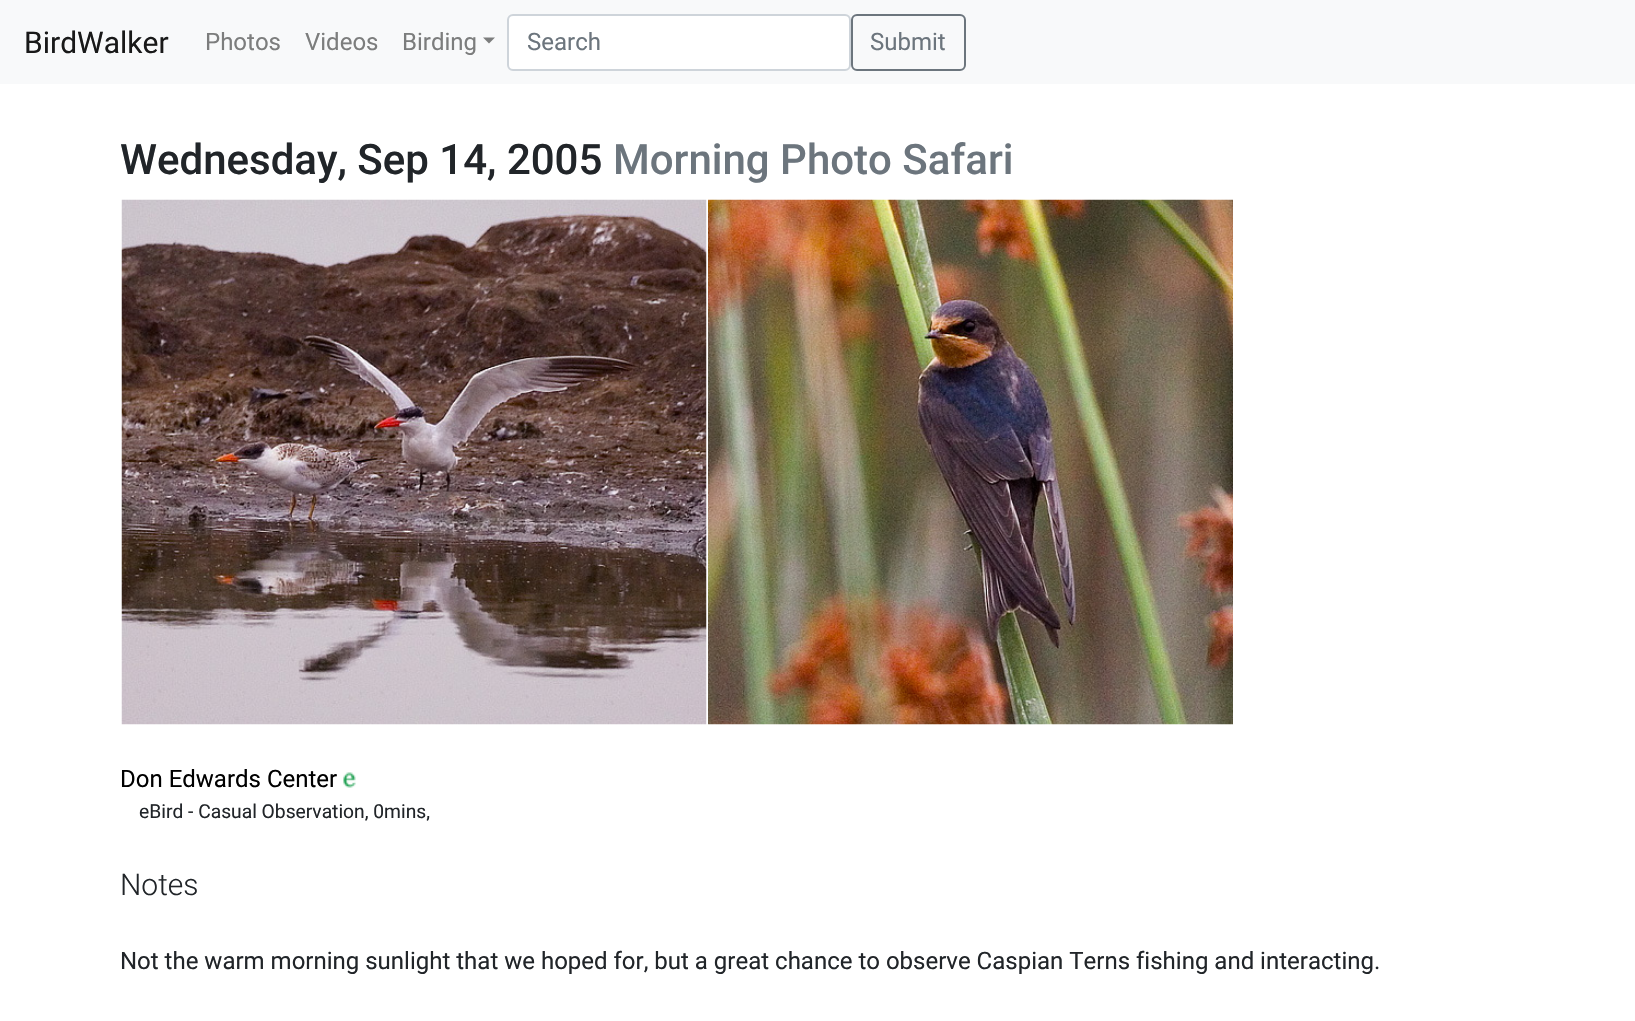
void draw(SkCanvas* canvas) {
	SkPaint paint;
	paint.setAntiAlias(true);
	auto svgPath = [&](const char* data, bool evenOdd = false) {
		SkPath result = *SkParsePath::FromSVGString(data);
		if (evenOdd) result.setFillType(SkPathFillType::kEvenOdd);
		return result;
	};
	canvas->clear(0xffffffff);
	paint.setColor(0xfff8f9fa);
	canvas->drawRect(SkRect::MakeXYWH(0, 0, 1635, 84), paint);
	SkFont f1(fontMgr->matchFamilyStyle("Roboto", SkFontStyle::Normal()), 30);
	f1.setSubpixel(true);
	paint.setColor(0xff191919);
	canvas->drawString("BirdWalker", 24, 53, f1, paint);
	SkFont f2(fontMgr->matchFamilyStyle("Roboto", SkFontStyle::Normal()), 24);
	f2.setSubpixel(true);
	paint.setColor(0xff7c7d7d);
	canvas->drawString("Photos", 205, 50, f2, paint);
	canvas->drawString("Videos", 305, 50, f2, paint);
	canvas->drawString("Birding", 402, 50, f2, paint);
	canvas->drawPath(svgPath("M483 37.5H495L489 43.5Z"), paint);
	paint.setColor(0xffffffff);
	canvas->drawRoundRect(SkRect::MakeXYWH(508, 15, 342, 55), 5, 5, paint);
	paint.setStroke(true);
	paint.setStrokeWidth(2);
	paint.setColor(0xffced4da);
	canvas->drawRoundRect(SkRect::MakeXYWH(508, 15, 342, 55), 5, 5, paint);
	paint.setStroke(false);
	paint.setColor(0xff6c757d);
	canvas->drawString("Search", 527, 50, f2, paint);
	paint.setStroke(true);
	canvas->drawRoundRect(SkRect::MakeXYWH(852, 15, 113, 55), 5, 5, paint);
	paint.setStroke(false);
	canvas->drawString("Submit", 870, 50, f2, paint);
	SkFont f3(fontMgr->matchFamilyStyle("Roboto", SkFontStyle(500, SkFontStyle::kNormal_Width, SkFontStyle::kUpright_Slant)), 42);
	f3.setSubpixel(true);
	paint.setColor(0xff212529);
	canvas->drawString("Wednesday, Sep 14, 2005", 120, 174, f3, paint);
	paint.setColor(0xff6c757d);
	canvas->drawString("Morning Photo Safari", 613, 174, f3, paint);
	canvas->drawImageRect(SkImages::DeferredFromEncodedData(SkData::MakeFromFileName("img1.png")), SkRect::MakeXYWH(121, 199, 586, 526), SkSamplingOptions());
	canvas->drawImageRect(SkImages::DeferredFromEncodedData(SkData::MakeFromFileName("img2.png")), SkRect::MakeXYWH(708, 199, 525, 526), SkSamplingOptions());
	paint.setColor(0xff000000);
	canvas->drawString("Don Edwards Center", 120, 787, f2, paint);
	canvas->drawImageRect(SkImages::DeferredFromEncodedData(SkData::MakeFromFileName("img3.png")), SkRect::MakeXYWH(343, 772, 13, 16), SkSamplingOptions());
	SkFont f4(fontMgr->matchFamilyStyle("Roboto", SkFontStyle::Normal()), 19.25);
	f4.setSubpixel(true);
	paint.setColor(0xff212529);
	canvas->drawString("eBird - Casual Observation, 0mins,", 139, 818, f4, paint);
	SkFont f5(fontMgr->matchFamilyStyle("Roboto", SkFontStyle(300, SkFontStyle::kNormal_Width, SkFontStyle::kUpright_Slant)), 30);
	f5.setSubpixel(true);
	canvas->drawString("Notes", 120, 895, f5, paint);
	canvas->drawString("Not the warm morning sunlight that we hoped for, but a great chance to observe Caspian Terns fishing and interacting.", 120, 969, f2, paint);
}
